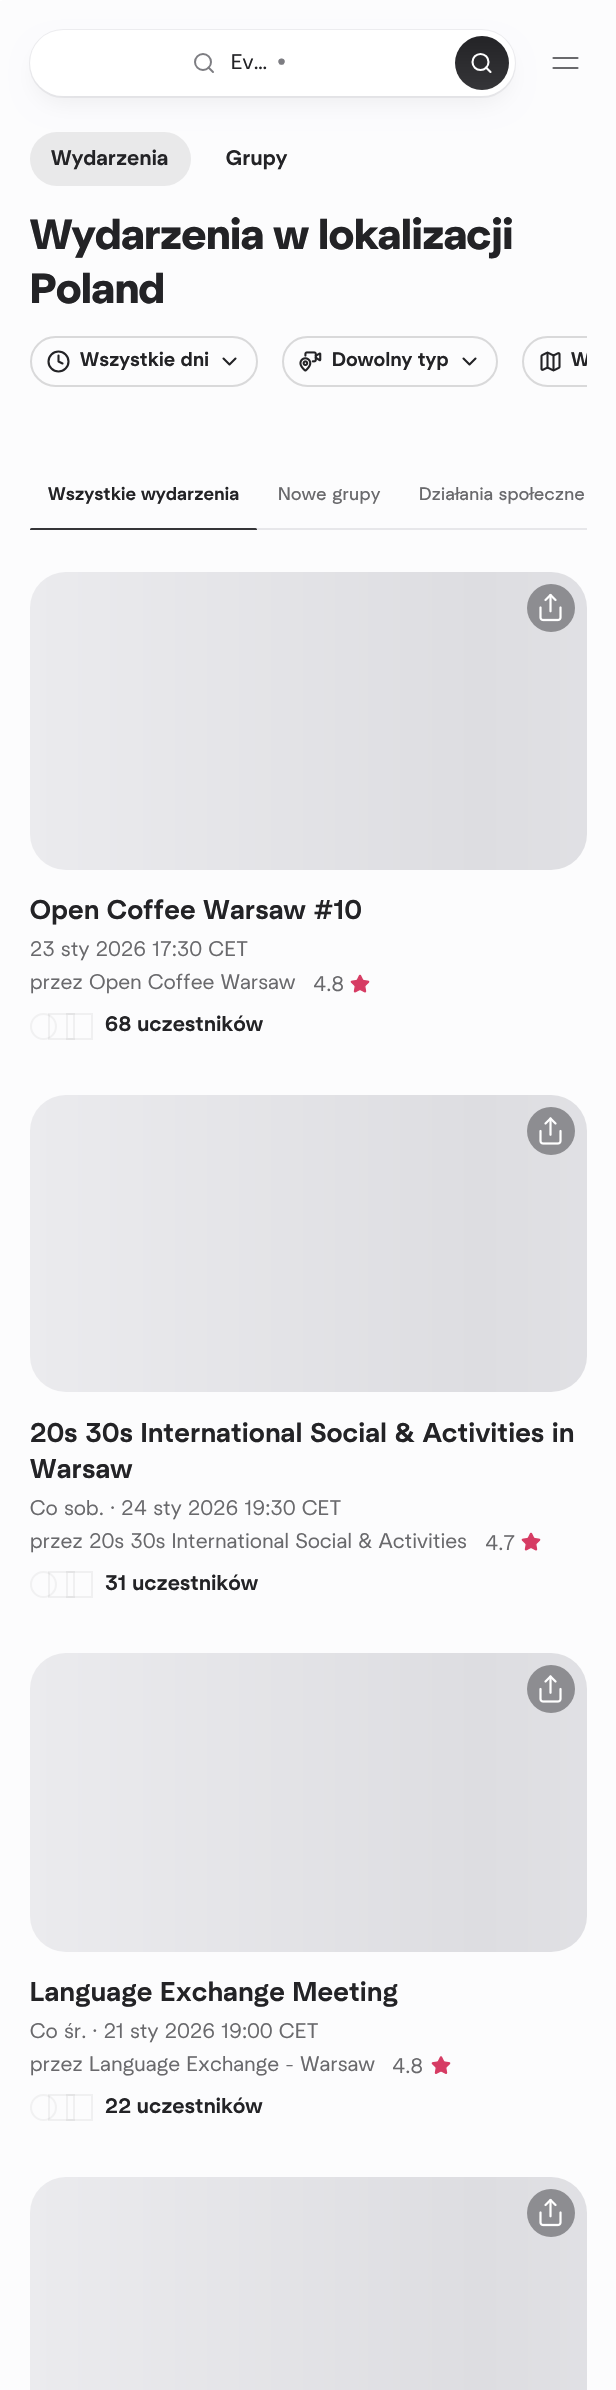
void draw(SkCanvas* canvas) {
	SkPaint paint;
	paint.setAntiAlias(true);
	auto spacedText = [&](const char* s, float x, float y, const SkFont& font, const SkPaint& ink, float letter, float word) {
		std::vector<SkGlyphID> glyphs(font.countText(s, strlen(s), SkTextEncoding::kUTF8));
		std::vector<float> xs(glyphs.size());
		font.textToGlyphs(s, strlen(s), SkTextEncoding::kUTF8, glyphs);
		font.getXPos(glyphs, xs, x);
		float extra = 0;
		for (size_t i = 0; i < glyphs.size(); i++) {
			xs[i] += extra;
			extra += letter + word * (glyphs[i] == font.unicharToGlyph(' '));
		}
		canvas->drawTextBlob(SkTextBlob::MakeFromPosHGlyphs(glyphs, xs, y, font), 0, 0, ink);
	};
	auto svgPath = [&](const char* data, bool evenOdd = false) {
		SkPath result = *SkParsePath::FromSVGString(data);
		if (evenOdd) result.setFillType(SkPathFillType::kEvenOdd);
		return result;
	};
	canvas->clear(0xfffcfcfd);
	paint.setColor(0xffffffff);
	canvas->drawRect(SkRect::MakeXYWH(0, 0, 2, 1), paint);
	paint.setStroke(true);
	paint.setStrokeWidth(2);
	paint.setColor(0xffededef);
	canvas->drawRoundRect(SkRect::MakeXYWH(30, 30, 485, 67), 33.5, 33.5, paint);
	paint.setStroke(false);
	paint.setColor(0xffe9e9ea);
	canvas->drawRoundRect(SkRect::MakeXYWH(30, 132, 161, 54), 27, 27, paint);
	paint.setColor(0x0f000010);
	paint.setMaskFilter(SkMaskFilter::MakeBlur(kNormal_SkBlurStyle, 12));
	canvas->drawRoundRect(SkRect::MakeXYWH(36, 48, 473, 54), 27, 27, paint);
	paint.setMaskFilter(nullptr);
	paint.setColor(0xffffffff);
	canvas->drawRoundRect(SkRect::MakeXYWH(30, 30, 485, 66), 33, 33, paint);
	paint.setStroke(true);
	paint.setStrokeCap(SkPaint::kRound_Cap);
	paint.setStrokeJoin(SkPaint::kRound_Join);
	paint.setColor(0xff7d7d82);
	canvas->drawPath(svgPath("M213 72L208.5 67.5"), paint);
	paint.setStrokeCap(SkPaint::kButt_Cap);
	paint.setStrokeJoin(SkPaint::kMiter_Join);
	canvas->drawCircle(203, 62, 8, paint);
	SkFont f1(fontMgr->matchFamilyStyle("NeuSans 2", SkFontStyle::Normal()), 21);
	f1.setSubpixel(true);
	paint.setStroke(false);
	paint.setColor(0xff232326);
	spacedText("Ev…", 231, 69, f1, paint, 0.4, 0);
	paint.setColor(0xff7d7d82);
	spacedText("•", 277, 69, f1, paint, 0.4, 0);
	{
		const SkColor colors[] = {0xff232326, 0xff353538};
		const float stops[] = {0, 1};
		const SkPoint ends[] = {{482, 36}, {482, 90}};
		paint.setShader(SkGradientShader::MakeLinear(ends, colors, stops, 2, SkTileMode::kClamp));
		paint.setAlpha(255);
	}
	canvas->drawCircle(482, 63, 27, paint);
	paint.setStroke(true);
	paint.setStrokeWidth(2.1);
	paint.setStrokeCap(SkPaint::kRound_Cap);
	paint.setStrokeJoin(SkPaint::kRound_Join);
	paint.setShader(nullptr);
	paint.setColor(0xffffffff);
	canvas->drawPath(svgPath("M490.5 72L486 67.5"), paint);
	paint.setStrokeCap(SkPaint::kButt_Cap);
	paint.setStrokeJoin(SkPaint::kMiter_Join);
	canvas->drawCircle(480.5, 62, 8, paint);
	paint.setStrokeWidth(2.2);
	paint.setStrokeCap(SkPaint::kRound_Cap);
	paint.setStrokeJoin(SkPaint::kRound_Join);
	paint.setColor(0xff69696c);
	canvas->drawPath(svgPath("M553.5 68H577.5M553.5 58H577.5"), paint);
	SkFont f2(fontMgr->matchFamilyStyle("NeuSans", SkFontStyle(500, SkFontStyle::kNormal_Width, SkFontStyle::kUpright_Slant)), 21);
	f2.setSubpixel(true);
	paint.setStroke(false);
	paint.setColor(0xff232326);
	spacedText("Wydarzenia", 51, 165, f2, paint, 0.4, 0);
	spacedText("Grupy", 226, 165, f2, paint, 0.4, 0);
	SkFont f3(fontMgr->matchFamilyStyle("NeuSans", SkFontStyle::Bold()), 42);
	f3.setSubpixel(true);
	canvas->drawString("Wydarzenia w lokalizacji", 30, 249, f3, paint);
	canvas->drawString("Poland", 30, 303, f3, paint);
	paint.setStroke(true);
	paint.setStrokeWidth(2);
	paint.setStrokeCap(SkPaint::kButt_Cap);
	paint.setStrokeJoin(SkPaint::kMiter_Join);
	paint.setColor(0xffd9d9da);
	canvas->drawRoundRect(SkRect::MakeXYWH(31, 337, 226, 49), 24.5, 24.5, paint);
	paint.setStrokeWidth(2.1);
	paint.setColor(0xff232326);
	canvas->drawCircle(58.5, 361.5, 10, paint);
	paint.setStrokeCap(SkPaint::kRound_Cap);
	paint.setStrokeJoin(SkPaint::kRound_Join);
	canvas->drawPath(svgPath("M58.5 355.5V361.5L62.5 363.5"), paint);
	SkFont f4(fontMgr->matchFamilyStyle("NeuSans", SkFontStyle(500, SkFontStyle::kNormal_Width, SkFontStyle::kUpright_Slant)), 19.5);
	f4.setSubpixel(true);
	paint.setStroke(false);
	spacedText("Wszystkie dni", 80, 366, f4, paint, 0.4, 0);
	paint.setStroke(true);
	canvas->drawPath(svgPath("M223.5 358.5L229.5 364.5L235.5 358.5"), paint);
	paint.setStrokeWidth(2);
	paint.setStrokeCap(SkPaint::kButt_Cap);
	paint.setStrokeJoin(SkPaint::kMiter_Join);
	paint.setColor(0xffd9d9da);
	canvas->drawRoundRect(SkRect::MakeXYWH(283, 337, 214, 49), 24.5, 24.5, paint);
	canvas->drawImageRect(SkImages::DeferredFromEncodedData(SkData::MakeFromFileName("img1.png")), SkRect::MakeXYWH(299, 351, 23, 21), SkSamplingOptions());
	paint.setStroke(false);
	paint.setColor(0xff232326);
	spacedText("Dowolny typ", 332, 366, f4, paint, 0.4, 0);
	paint.setStroke(true);
	paint.setStrokeWidth(2.1);
	paint.setStrokeCap(SkPaint::kRound_Cap);
	paint.setStrokeJoin(SkPaint::kRound_Join);
	canvas->drawPath(svgPath("M463.5 358.5L469.5 364.5L475.5 358.5"), paint);
	canvas->save();
	canvas->clipRect(SkRect::MakeXYWH(30, 336, 557, 51));
	paint.setStrokeWidth(2);
	paint.setStrokeCap(SkPaint::kButt_Cap);
	paint.setStrokeJoin(SkPaint::kMiter_Join);
	paint.setColor(0xffd9d9da);
	canvas->drawRoundRect(SkRect::MakeXYWH(523, 337, 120, 49), 24.5, 24.5, paint);
	canvas->restore();
	canvas->drawImageRect(SkImages::DeferredFromEncodedData(SkData::MakeFromFileName("img2.png")), SkRect::MakeXYWH(540, 351, 21, 21), SkSamplingOptions());
	canvas->save();
	canvas->clipRect(SkRect::MakeXYWH(569, 347, 18, 30));
	paint.setStroke(false);
	paint.setColor(0xff232326);
	spacedText("W", 571, 366, f4, paint, 0.4, 0);
	canvas->restore();
	paint.setColor(0xffe7e7ea);
	canvas->drawRect(SkRect::MakeXYWH(30, 528, 557, 2), paint);
	SkFont f5(fontMgr->matchFamilyStyle("NeuSans", SkFontStyle(500, SkFontStyle::kNormal_Width, SkFontStyle::kUpright_Slant)), 18);
	f5.setSubpixel(true);
	paint.setColor(0xff232326);
	spacedText("Wszystkie wydarzenia", 48, 500, f5, paint, 0.4, 0);
	canvas->save();
	canvas->clipRect(SkRect::MakeXYWH(30, 411, 557, 119));
	paint.setColor(0xff353538);
	canvas->drawRoundRect(SkRect::MakeXYWH(30, 528, 227, 3), 1.5, 1.5, paint);
	canvas->restore();
	SkFont f6(fontMgr->matchFamilyStyle("NeuSans", SkFontStyle::Normal()), 18);
	f6.setSubpixel(true);
	paint.setColor(0xff69696c);
	spacedText("Nowe grupy", 278, 500, f6, paint, 0.4, 0);
	spacedText("Działania społeczne", 419, 500, f6, paint, 0.4, 0);
	{
		const SkColor colors[] = {0xffebebee, 0xffdddde1, 0xffebebee};
		const float stops[] = {0, 0.3, 0.6};
		const SkPoint ends[] = {{30, 721}, {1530, 721}};
		paint.setShader(SkGradientShader::MakeLinear(ends, colors, stops, 3, SkTileMode::kClamp));
		paint.setAlpha(255);
	}
	canvas->drawRoundRect(SkRect::MakeXYWH(30, 572, 557, 298), 36, 36, paint);
	paint.setShader(nullptr);
	paint.setColor(0xff8d8d91);
	canvas->drawCircle(551, 608, 24, paint);
	canvas->drawImageRect(SkImages::DeferredFromEncodedData(SkData::MakeFromFileName("img3.png")), SkRect::MakeXYWH(539, 593, 23, 29), SkSamplingOptions());
	SkFont f7(fontMgr->matchFamilyStyle("NeuSans", SkFontStyle(500, SkFontStyle::kNormal_Width, SkFontStyle::kUpright_Slant)), 27);
	f7.setSubpixel(true);
	paint.setColor(0xff232326);
	spacedText("Open Coffee Warsaw #10", 30, 919, f7, paint, 0.55, 0);
	paint.setColor(0xff69696c);
	spacedText("23 sty 2026 17:30 CET", 30, 956, f1, paint, 0.4, 0);
	spacedText("przez Open Coffee Warsaw", 30, 989, f1, paint, 0.4, 0);
	spacedText("4.8", 313, 991, f1, paint, 0.4, 0);
	canvas->drawImageRect(SkImages::DeferredFromEncodedData(SkData::MakeFromFileName("img4.png")), SkRect::MakeXYWH(350, 974, 20, 19), SkSamplingOptions());
	paint.setStroke(true);
	paint.setColor(0xfff1f1f2);
	canvas->drawCircle(43.5, 1026.5, 12.5, paint);
	paint.setColor(0x0d121215);
	canvas->drawRect(SkRect::MakeXYWH(49, 1014, 25, 25), paint);
	canvas->drawRect(SkRect::MakeXYWH(67, 1014, 25, 25), paint);
	paint.setStroke(false);
	paint.setColor(0xff232326);
	spacedText("68 uczestników", 105, 1031, f2, paint, 0.4, 0);
	{
		const SkColor colors[] = {0xffebebee, 0xffdddde1, 0xffebebee};
		const float stops[] = {0, 0.3, 0.6};
		const SkPoint ends[] = {{30, 1244}, {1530, 1244}};
		paint.setShader(SkGradientShader::MakeLinear(ends, colors, stops, 3, SkTileMode::kClamp));
		paint.setAlpha(255);
	}
	canvas->drawRoundRect(SkRect::MakeXYWH(30, 1095, 557, 297), 36, 36, paint);
	paint.setShader(nullptr);
	paint.setColor(0xff8d8d91);
	canvas->drawCircle(551, 1131, 24, paint);
	canvas->drawImageRect(SkImages::DeferredFromEncodedData(SkData::MakeFromFileName("img5.png")), SkRect::MakeXYWH(539, 1117, 23, 28), SkSamplingOptions());
	paint.setColor(0xff232326);
	spacedText("20s 30s International Social & Activities in", 30, 1442, f7, paint, 0.55, 0);
	spacedText("Warsaw", 30, 1478, f7, paint, 0.55, 0);
	paint.setColor(0xff69696c);
	spacedText("Co sob. · 24 sty 2026 19:30 CET", 30, 1515, f1, paint, 0.4, 0);
	spacedText("przez 20s 30s International Social & Activities", 30, 1548, f1, paint, 0.4, 0);
	spacedText("4.7", 485, 1550, f1, paint, 0.4, 0);
	canvas->drawImageRect(SkImages::DeferredFromEncodedData(SkData::MakeFromFileName("img4.png")), SkRect::MakeXYWH(521, 1532, 20, 19), SkSamplingOptions());
	paint.setStroke(true);
	paint.setColor(0xfff1f1f2);
	canvas->drawCircle(43.5, 1584.5, 12.5, paint);
	paint.setColor(0x0d121215);
	canvas->drawRect(SkRect::MakeXYWH(49, 1572, 25, 25), paint);
	canvas->drawRect(SkRect::MakeXYWH(67, 1572, 25, 25), paint);
	paint.setStroke(false);
	paint.setColor(0xff232326);
	spacedText("31 uczestników", 105, 1590, f2, paint, 0.4, 0);
	{
		const SkColor colors[] = {0xffebebee, 0xffdddde1, 0xffebebee};
		const float stops[] = {0, 0.3, 0.6};
		const SkPoint ends[] = {{30, 1802}, {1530, 1802}};
		paint.setShader(SkGradientShader::MakeLinear(ends, colors, stops, 3, SkTileMode::kClamp));
		paint.setAlpha(255);
	}
	canvas->drawRoundRect(SkRect::MakeXYWH(30, 1653, 557, 299), 36, 36, paint);
	paint.setShader(nullptr);
	paint.setColor(0xff8d8d91);
	canvas->drawCircle(551, 1689, 24, paint);
	canvas->drawImageRect(SkImages::DeferredFromEncodedData(SkData::MakeFromFileName("img5.png")), SkRect::MakeXYWH(539, 1675, 23, 28), SkSamplingOptions());
	paint.setColor(0xff232326);
	spacedText("Language Exchange Meeting", 30, 2001, f7, paint, 0.55, 0);
	paint.setColor(0xff69696c);
	spacedText("Co śr. · 21 sty 2026 19:00 CET", 30, 2038, f1, paint, 0.4, 0);
	spacedText("przez Language Exchange - Warsaw", 30, 2071, f1, paint, 0.4, 0);
	spacedText("4.8", 392, 2073, f1, paint, 0.4, 0);
	canvas->drawImageRect(SkImages::DeferredFromEncodedData(SkData::MakeFromFileName("img6.png")), SkRect::MakeXYWH(431, 2056, 20, 18), SkSamplingOptions());
	paint.setStroke(true);
	paint.setColor(0xfff1f1f2);
	canvas->drawCircle(43.5, 2107.5, 12.5, paint);
	paint.setColor(0x0d121215);
	canvas->drawRect(SkRect::MakeXYWH(49, 2095, 25, 25), paint);
	canvas->drawRect(SkRect::MakeXYWH(67, 2095, 25, 25), paint);
	paint.setStroke(false);
	paint.setColor(0xff232326);
	spacedText("22 uczestników", 105, 2113, f2, paint, 0.4, 0);
	{
		const SkColor colors[] = {0xffebebee, 0xffdddde1, 0xffebebee};
		const float stops[] = {0, 0.3, 0.6};
		const SkPoint ends[] = {{30, 2326}, {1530, 2326}};
		paint.setShader(SkGradientShader::MakeLinear(ends, colors, stops, 3, SkTileMode::kClamp));
		paint.setAlpha(255);
	}
	canvas->drawRoundRect(SkRect::MakeXYWH(30, 2177, 557, 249), 36, 36, paint);
	paint.setShader(nullptr);
	paint.setColor(0xff8d8d91);
	canvas->drawCircle(551, 2213, 24, paint);
	canvas->drawImageRect(SkImages::DeferredFromEncodedData(SkData::MakeFromFileName("img3.png")), SkRect::MakeXYWH(539, 2198, 23, 29), SkSamplingOptions());
}
